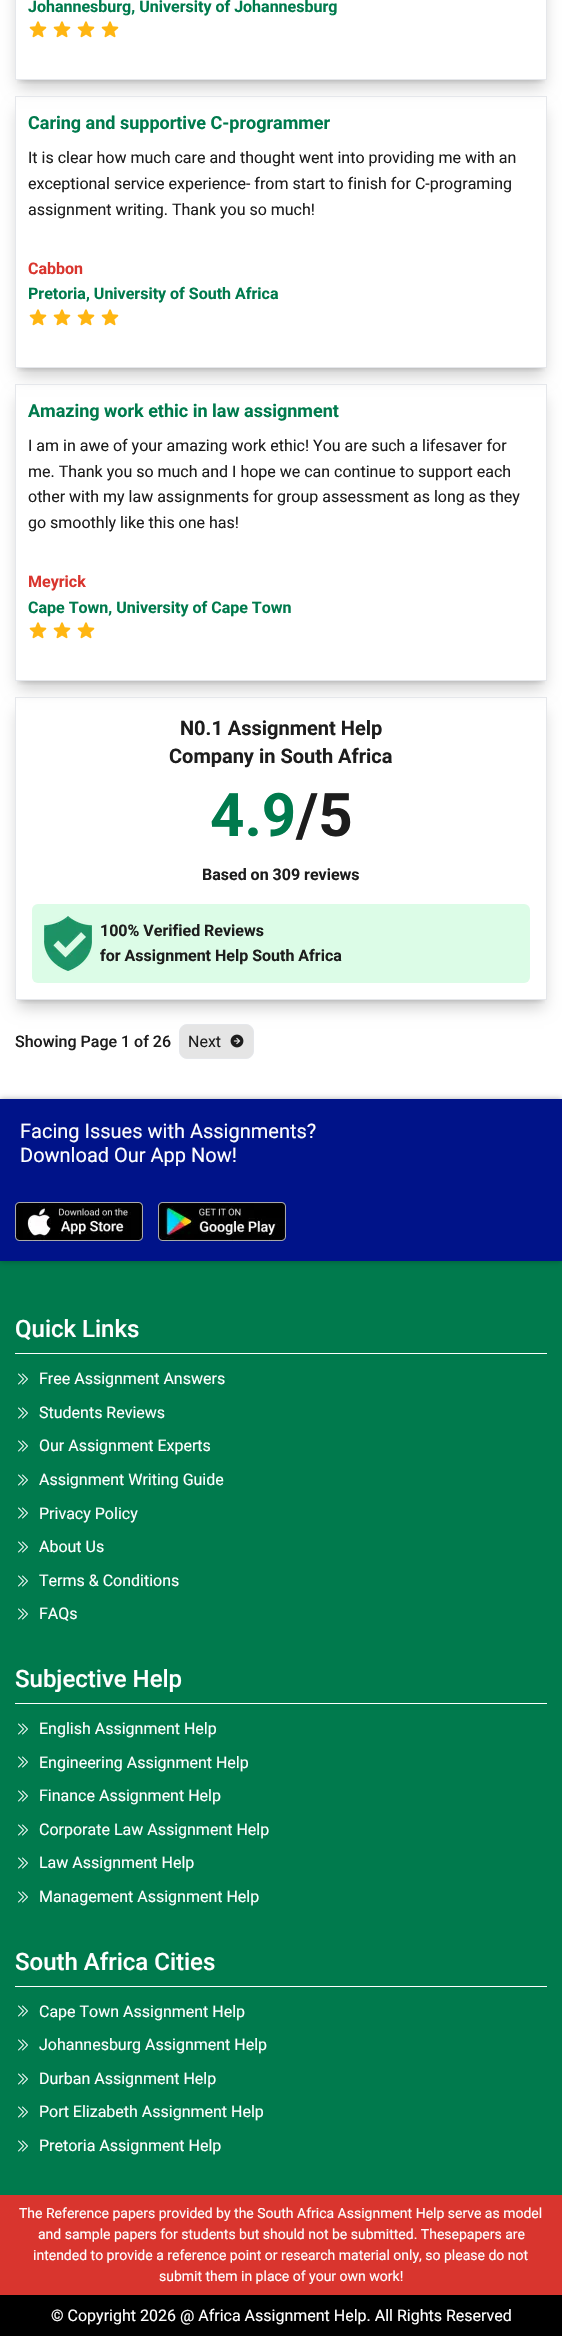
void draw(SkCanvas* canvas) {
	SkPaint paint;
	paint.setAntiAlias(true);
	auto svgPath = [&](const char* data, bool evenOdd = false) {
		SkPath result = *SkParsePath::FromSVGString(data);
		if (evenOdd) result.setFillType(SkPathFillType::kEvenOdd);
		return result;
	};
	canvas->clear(0xffffffff);
	canvas->save();
	canvas->clipRect(SkRect::MakeXYWH(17, 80, 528, 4));
	paint.setColor(0x33000000);
	paint.setMaskFilter(SkMaskFilter::MakeBlur(kNormal_SkBlurStyle, 3));
	canvas->drawRect(SkRect::MakeXYWH(19, -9, 524, 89), paint);
	paint.setMaskFilter(nullptr);
	canvas->restore();
	canvas->save();
	canvas->clipPath(svgPath("M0 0H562V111H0ZM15-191H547V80H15Z", true), true);
	paint.setMaskFilter(SkMaskFilter::MakeBlur(kNormal_SkBlurStyle, 7.5));
	canvas->drawRect(SkRect::MakeXYWH(18, -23, 526, 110), paint);
	paint.setMaskFilter(nullptr);
	canvas->restore();
	paint.setStroke(true);
	paint.setStrokeWidth(1);
	paint.setColor(0xffe5e7eb);
	canvas->drawRect(SkRect::MakeXYWH(15.5, -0.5, 531, 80), paint);
	SkFont f1(fontMgr->matchFamilyStyle("Roboto", SkFontStyle::Bold()), 16);
	f1.setSubpixel(true);
	paint.setStroke(false);
	paint.setColor(0xff007a4d);
	canvas->drawString("Johannesburg, University of Johannesburg", 28, 12, f1, paint);
	canvas->drawImageRect(SkImages::DeferredFromEncodedData(SkData::MakeFromFileName("img1.png")), SkRect::MakeXYWH(29, 21, 18, 17), SkSamplingOptions());
	canvas->drawImageRect(SkImages::DeferredFromEncodedData(SkData::MakeFromFileName("img1.png")), SkRect::MakeXYWH(53, 21, 18, 17), SkSamplingOptions());
	canvas->drawImageRect(SkImages::DeferredFromEncodedData(SkData::MakeFromFileName("img1.png")), SkRect::MakeXYWH(77, 21, 18, 17), SkSamplingOptions());
	canvas->drawImageRect(SkImages::DeferredFromEncodedData(SkData::MakeFromFileName("img1.png")), SkRect::MakeXYWH(101, 21, 18, 17), SkSamplingOptions());
	canvas->save();
	canvas->clipRect(SkRect::MakeXYWH(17, 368, 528, 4));
	paint.setColor(0x33000000);
	paint.setMaskFilter(SkMaskFilter::MakeBlur(kNormal_SkBlurStyle, 3));
	canvas->drawRect(SkRect::MakeXYWH(19, 104, 524, 264), paint);
	paint.setMaskFilter(nullptr);
	canvas->restore();
	canvas->save();
	canvas->clipPath(svgPath("M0 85H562V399H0ZM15 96H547V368H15Z", true), true);
	paint.setMaskFilter(SkMaskFilter::MakeBlur(kNormal_SkBlurStyle, 7.5));
	canvas->drawRect(SkRect::MakeXYWH(18, 109, 526, 266), paint);
	paint.setMaskFilter(nullptr);
	canvas->restore();
	paint.setStroke(true);
	paint.setColor(0xffe5e7eb);
	canvas->drawRect(SkRect::MakeXYWH(15.5, 96.5, 531, 271), paint);
	SkFont f2(fontMgr->matchFamilyStyle("Roboto", SkFontStyle::Bold()), 18);
	f2.setSubpixel(true);
	paint.setStroke(false);
	paint.setColor(0xff007a4d);
	canvas->drawString("Caring and supportive C-programmer", 28, 129, f2, paint);
	SkFont f3(fontMgr->matchFamilyStyle("Roboto", SkFontStyle::Normal()), 16);
	f3.setSubpixel(true);
	paint.setColor(0xff1d1d1d);
	canvas->drawString("It is clear how much care and thought went into providing me with an", 28, 163, f3, paint);
	canvas->drawString("exceptional service experience- from start to finish for C-programing", 28, 189, f3, paint);
	canvas->drawString("assignment writing. Thank you so much!", 28, 215, f3, paint);
	paint.setColor(0xffd9352e);
	canvas->drawString("Cabbon", 28, 274, f1, paint);
	paint.setColor(0xff007a4d);
	canvas->drawString("Pretoria, University of South Africa", 28, 299, f1, paint);
	canvas->drawImageRect(SkImages::DeferredFromEncodedData(SkData::MakeFromFileName("img1.png")), SkRect::MakeXYWH(29, 309, 18, 17), SkSamplingOptions());
	canvas->drawImageRect(SkImages::DeferredFromEncodedData(SkData::MakeFromFileName("img1.png")), SkRect::MakeXYWH(53, 309, 18, 17), SkSamplingOptions());
	canvas->drawImageRect(SkImages::DeferredFromEncodedData(SkData::MakeFromFileName("img1.png")), SkRect::MakeXYWH(77, 309, 18, 17), SkSamplingOptions());
	canvas->drawImageRect(SkImages::DeferredFromEncodedData(SkData::MakeFromFileName("img1.png")), SkRect::MakeXYWH(101, 309, 18, 17), SkSamplingOptions());
	canvas->save();
	canvas->clipRect(SkRect::MakeXYWH(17, 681, 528, 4));
	paint.setColor(0x33000000);
	paint.setMaskFilter(SkMaskFilter::MakeBlur(kNormal_SkBlurStyle, 3));
	canvas->drawRect(SkRect::MakeXYWH(19, 392, 524, 289), paint);
	paint.setMaskFilter(nullptr);
	canvas->restore();
	canvas->save();
	canvas->clipPath(svgPath("M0 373H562V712H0ZM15 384H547V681H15Z", true), true);
	paint.setMaskFilter(SkMaskFilter::MakeBlur(kNormal_SkBlurStyle, 7.5));
	canvas->drawRect(SkRect::MakeXYWH(18, 397, 526, 291), paint);
	paint.setMaskFilter(nullptr);
	canvas->restore();
	paint.setStroke(true);
	paint.setColor(0xffe5e7eb);
	canvas->drawRect(SkRect::MakeXYWH(15.5, 384.5, 531, 296), paint);
	paint.setStroke(false);
	paint.setColor(0xff007a4d);
	canvas->drawString("Amazing work ethic in law assignment", 28, 417, f2, paint);
	paint.setColor(0xff1d1d1d);
	canvas->drawString("I am in awe of your amazing work ethic! You are such a lifesaver for", 28, 451, f3, paint);
	canvas->drawString("me. Thank you so much and I hope we can continue to support each", 28, 477, f3, paint);
	canvas->drawString("other with my law assignments for group assessment as long as they", 28, 502, f3, paint);
	canvas->drawString("go smoothly like this one has!", 28, 528, f3, paint);
	paint.setColor(0xffd9352e);
	canvas->drawString("Meyrick", 28, 587, f1, paint);
	paint.setColor(0xff007a4d);
	canvas->drawString("Cape Town, University of Cape Town", 28, 613, f1, paint);
	canvas->drawImageRect(SkImages::DeferredFromEncodedData(SkData::MakeFromFileName("img1.png")), SkRect::MakeXYWH(29, 622, 18, 17), SkSamplingOptions());
	canvas->drawImageRect(SkImages::DeferredFromEncodedData(SkData::MakeFromFileName("img1.png")), SkRect::MakeXYWH(53, 622, 18, 17), SkSamplingOptions());
	canvas->drawImageRect(SkImages::DeferredFromEncodedData(SkData::MakeFromFileName("img1.png")), SkRect::MakeXYWH(77, 622, 18, 17), SkSamplingOptions());
	canvas->save();
	canvas->clipRect(SkRect::MakeXYWH(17, 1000, 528, 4));
	paint.setColor(0x33000000);
	paint.setMaskFilter(SkMaskFilter::MakeBlur(kNormal_SkBlurStyle, 3));
	canvas->drawRect(SkRect::MakeXYWH(19, 705, 524, 295), paint);
	paint.setMaskFilter(nullptr);
	canvas->restore();
	canvas->save();
	canvas->clipPath(svgPath("M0 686H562V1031H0ZM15 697H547V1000H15Z", true), true);
	paint.setMaskFilter(SkMaskFilter::MakeBlur(kNormal_SkBlurStyle, 7.5));
	canvas->drawRect(SkRect::MakeXYWH(18, 710, 526, 297), paint);
	paint.setMaskFilter(nullptr);
	canvas->restore();
	paint.setStroke(true);
	paint.setColor(0xffe5e7eb);
	canvas->drawRect(SkRect::MakeXYWH(15.5, 697.5, 531, 302), paint);
	SkFont f4(fontMgr->matchFamilyStyle("Roboto", SkFontStyle::Bold()), 20);
	f4.setSubpixel(true);
	paint.setStroke(false);
	paint.setColor(0xff1d1d1d);
	canvas->drawString("N0.1 Assignment Help", 180, 735, f4, paint);
	canvas->drawString("Company in South Africa", 169, 763, f4, paint);
	SkFont f5(fontMgr->matchFamilyStyle("Roboto", SkFontStyle::Bold()), 60);
	f5.setSubpixel(true);
	paint.setColor(0xff007a4d);
	canvas->drawString("4.9", 210, 836, f5, paint);
	paint.setColor(0xff1d1d1d);
	canvas->drawString("/5", 296, 836, f5, paint);
	canvas->drawString("Based on 309 reviews", 202, 880, f1, paint);
	paint.setColor(0xffdcfce7);
	canvas->drawRoundRect(SkRect::MakeXYWH(32, 904, 498, 79), 6, 6, paint);
	canvas->drawImageRect(SkImages::DeferredFromEncodedData(SkData::MakeFromFileName("img2.png")), SkRect::MakeXYWH(44, 916, 48, 55), SkSamplingOptions());
	paint.setColor(0xff1d1d1d);
	canvas->drawString("100% Verified Reviews", 100, 936, f1, paint);
	canvas->drawString("for Assignment Help South Africa", 100, 961, f1, paint);
	SkFont f6(fontMgr->matchFamilyStyle("Roboto", SkFontStyle(500, SkFontStyle::kNormal_Width, SkFontStyle::kUpright_Slant)), 16);
	f6.setSubpixel(true);
	canvas->drawString("Showing Page 1 of 26", 15, 1047, f6, paint);
	paint.setColor(0xffe5e5e5);
	canvas->drawRoundRect(SkRect::MakeXYWH(179.5, 1024.5, 74, 34), 7.5, 7.5, paint);
	paint.setStroke(true);
	paint.setColor(0xffe5e7eb);
	canvas->drawRoundRect(SkRect::MakeXYWH(179.5, 1024.5, 74, 34), 7.5, 7.5, paint);
	paint.setStroke(false);
	paint.setColor(0xff1d1d1d);
	canvas->drawString("Next", 188, 1047, f3, paint);
	canvas->drawImageRect(SkImages::DeferredFromEncodedData(SkData::MakeFromFileName("img3.png")), SkRect::MakeXYWH(230, 1034, 14, 14), SkSamplingOptions());
	paint.setColor(0xff007a4d);
	canvas->drawRect(SkRect::MakeXYWH(0, 1261, 562, 934), paint);
	paint.setColor(0x4d000000);
	paint.setMaskFilter(SkMaskFilter::MakeBlur(kNormal_SkBlurStyle, 3));
	canvas->drawRect(SkRect::MakeXYWH(0, 1099, 562, 162), paint);
	paint.setMaskFilter(nullptr);
	paint.setColor(0xff001389);
	canvas->drawRect(SkRect::MakeXYWH(0, 1099, 562, 162), paint);
	SkFont f7(fontMgr->matchFamilyStyle("Roboto", SkFontStyle::Normal()), 20);
	f7.setSubpixel(true);
	paint.setColor(0xffffffff);
	canvas->drawString("Facing Issues with Assignments?", 20, 1138, f7, paint);
	canvas->drawString("Download Our App Now!", 20, 1162, f7, paint);
	canvas->drawImageRect(SkImages::DeferredFromEncodedData(SkData::MakeFromFileName("img4.png")), SkRect::MakeXYWH(15, 1202, 128, 39), SkSamplingOptions());
	canvas->drawImageRect(SkImages::DeferredFromEncodedData(SkData::MakeFromFileName("img5.png")), SkRect::MakeXYWH(158, 1202, 128, 39), SkSamplingOptions());
	canvas->drawRect(SkRect::MakeXYWH(15, 1353, 532, 1), paint);
	SkFont f8(fontMgr->matchFamilyStyle("Roboto", SkFontStyle(500, SkFontStyle::kNormal_Width, SkFontStyle::kUpright_Slant)), 24);
	f8.setSubpixel(true);
	canvas->drawString("Quick Links", 15, 1337, f8, paint);
	canvas->drawImageRect(SkImages::DeferredFromEncodedData(SkData::MakeFromFileName("img6.png")), SkRect::MakeXYWH(18, 1373, 10, 12), SkSamplingOptions());
	canvas->drawString("Free Assignment Answers", 39, 1384, f3, paint);
	canvas->drawImageRect(SkImages::DeferredFromEncodedData(SkData::MakeFromFileName("img6.png")), SkRect::MakeXYWH(18, 1407, 10, 12), SkSamplingOptions());
	canvas->drawString("Students Reviews", 39, 1418, f3, paint);
	canvas->drawImageRect(SkImages::DeferredFromEncodedData(SkData::MakeFromFileName("img6.png")), SkRect::MakeXYWH(18, 1440, 10, 12), SkSamplingOptions());
	canvas->drawString("Our Assignment Experts", 39, 1451, f3, paint);
	canvas->drawImageRect(SkImages::DeferredFromEncodedData(SkData::MakeFromFileName("img6.png")), SkRect::MakeXYWH(18, 1474, 10, 12), SkSamplingOptions());
	canvas->drawString("Assignment Writing Guide", 39, 1485, f3, paint);
	canvas->drawImageRect(SkImages::DeferredFromEncodedData(SkData::MakeFromFileName("img6.png")), SkRect::MakeXYWH(18, 1507, 10, 12), SkSamplingOptions());
	canvas->drawString("Privacy Policy", 39, 1519, f3, paint);
	canvas->drawImageRect(SkImages::DeferredFromEncodedData(SkData::MakeFromFileName("img6.png")), SkRect::MakeXYWH(18, 1541, 10, 12), SkSamplingOptions());
	canvas->drawString("About Us", 39, 1552, f3, paint);
	canvas->drawImageRect(SkImages::DeferredFromEncodedData(SkData::MakeFromFileName("img6.png")), SkRect::MakeXYWH(18, 1575, 10, 12), SkSamplingOptions());
	canvas->drawString("Terms & Conditions", 39, 1586, f3, paint);
	canvas->drawImageRect(SkImages::DeferredFromEncodedData(SkData::MakeFromFileName("img6.png")), SkRect::MakeXYWH(18, 1608, 10, 12), SkSamplingOptions());
	canvas->drawString("FAQs", 39, 1619, f3, paint);
	canvas->drawRect(SkRect::MakeXYWH(15, 1703, 532, 1), paint);
	canvas->drawString("Subjective Help", 15, 1687, f8, paint);
	canvas->drawImageRect(SkImages::DeferredFromEncodedData(SkData::MakeFromFileName("img6.png")), SkRect::MakeXYWH(18, 1723, 10, 12), SkSamplingOptions());
	canvas->drawString("English Assignment Help", 39, 1734, f3, paint);
	canvas->drawImageRect(SkImages::DeferredFromEncodedData(SkData::MakeFromFileName("img6.png")), SkRect::MakeXYWH(18, 1756, 10, 12), SkSamplingOptions());
	canvas->drawString("Engineering Assignment Help", 39, 1768, f3, paint);
	canvas->drawImageRect(SkImages::DeferredFromEncodedData(SkData::MakeFromFileName("img6.png")), SkRect::MakeXYWH(18, 1790, 10, 12), SkSamplingOptions());
	canvas->drawString("Finance Assignment Help", 39, 1801, f3, paint);
	canvas->drawImageRect(SkImages::DeferredFromEncodedData(SkData::MakeFromFileName("img6.png")), SkRect::MakeXYWH(18, 1824, 10, 12), SkSamplingOptions());
	canvas->drawString("Corporate Law Assignment Help", 39, 1835, f3, paint);
	canvas->drawImageRect(SkImages::DeferredFromEncodedData(SkData::MakeFromFileName("img6.png")), SkRect::MakeXYWH(18, 1857, 10, 12), SkSamplingOptions());
	canvas->drawString("Law Assignment Help", 39, 1868, f3, paint);
	canvas->drawImageRect(SkImages::DeferredFromEncodedData(SkData::MakeFromFileName("img6.png")), SkRect::MakeXYWH(18, 1891, 10, 12), SkSamplingOptions());
	canvas->drawString("Management Assignment Help", 39, 1902, f3, paint);
	canvas->drawRect(SkRect::MakeXYWH(15, 1986, 532, 1), paint);
	canvas->drawString("South Africa Cities", 15, 1970, f8, paint);
	canvas->drawImageRect(SkImages::DeferredFromEncodedData(SkData::MakeFromFileName("img6.png")), SkRect::MakeXYWH(18, 2005, 10, 12), SkSamplingOptions());
	canvas->drawString("Cape Town Assignment Help", 39, 2017, f3, paint);
	canvas->drawImageRect(SkImages::DeferredFromEncodedData(SkData::MakeFromFileName("img6.png")), SkRect::MakeXYWH(18, 2039, 10, 12), SkSamplingOptions());
	canvas->drawString("Johannesburg Assignment Help", 39, 2050, f3, paint);
	canvas->drawImageRect(SkImages::DeferredFromEncodedData(SkData::MakeFromFileName("img6.png")), SkRect::MakeXYWH(18, 2073, 10, 12), SkSamplingOptions());
	canvas->drawString("Durban Assignment Help", 39, 2084, f3, paint);
	canvas->drawImageRect(SkImages::DeferredFromEncodedData(SkData::MakeFromFileName("img6.png")), SkRect::MakeXYWH(18, 2106, 10, 12), SkSamplingOptions());
	canvas->drawString("Port Elizabeth Assignment Help", 39, 2117, f3, paint);
	canvas->drawImageRect(SkImages::DeferredFromEncodedData(SkData::MakeFromFileName("img6.png")), SkRect::MakeXYWH(18, 2140, 10, 12), SkSamplingOptions());
	canvas->drawString("Pretoria Assignment Help", 39, 2151, f3, paint);
	paint.setColor(0xffd9352e);
	canvas->drawRect(SkRect::MakeXYWH(0, 2195, 562, 100), paint);
	SkFont f9(fontMgr->matchFamilyStyle("Roboto", SkFontStyle::Normal()), 14);
	f9.setSubpixel(true);
	paint.setColor(0xffffffff);
	canvas->drawString("The Reference papers provided by the South Africa Assignment Help serve as model", 19, 2218, f9, paint);
	canvas->drawString("and sample papers for students but should not be submitted. Thesepapers are", 38, 2239, f9, paint);
	canvas->drawString("intended to provide a reference point or research material only, so please do not", 33, 2260, f9, paint);
	canvas->drawString("submit them in place of your own work!", 159, 2281, f9, paint);
	paint.setColor(0xff000000);
	canvas->drawRect(SkRect::MakeXYWH(0, 2295, 562, 41), paint);
	paint.setColor(0xffffffff);
	canvas->drawString("© Copyright 2026 @ Africa Assignment Help. All Rights Reserved", 51, 2321, f3, paint);
}
